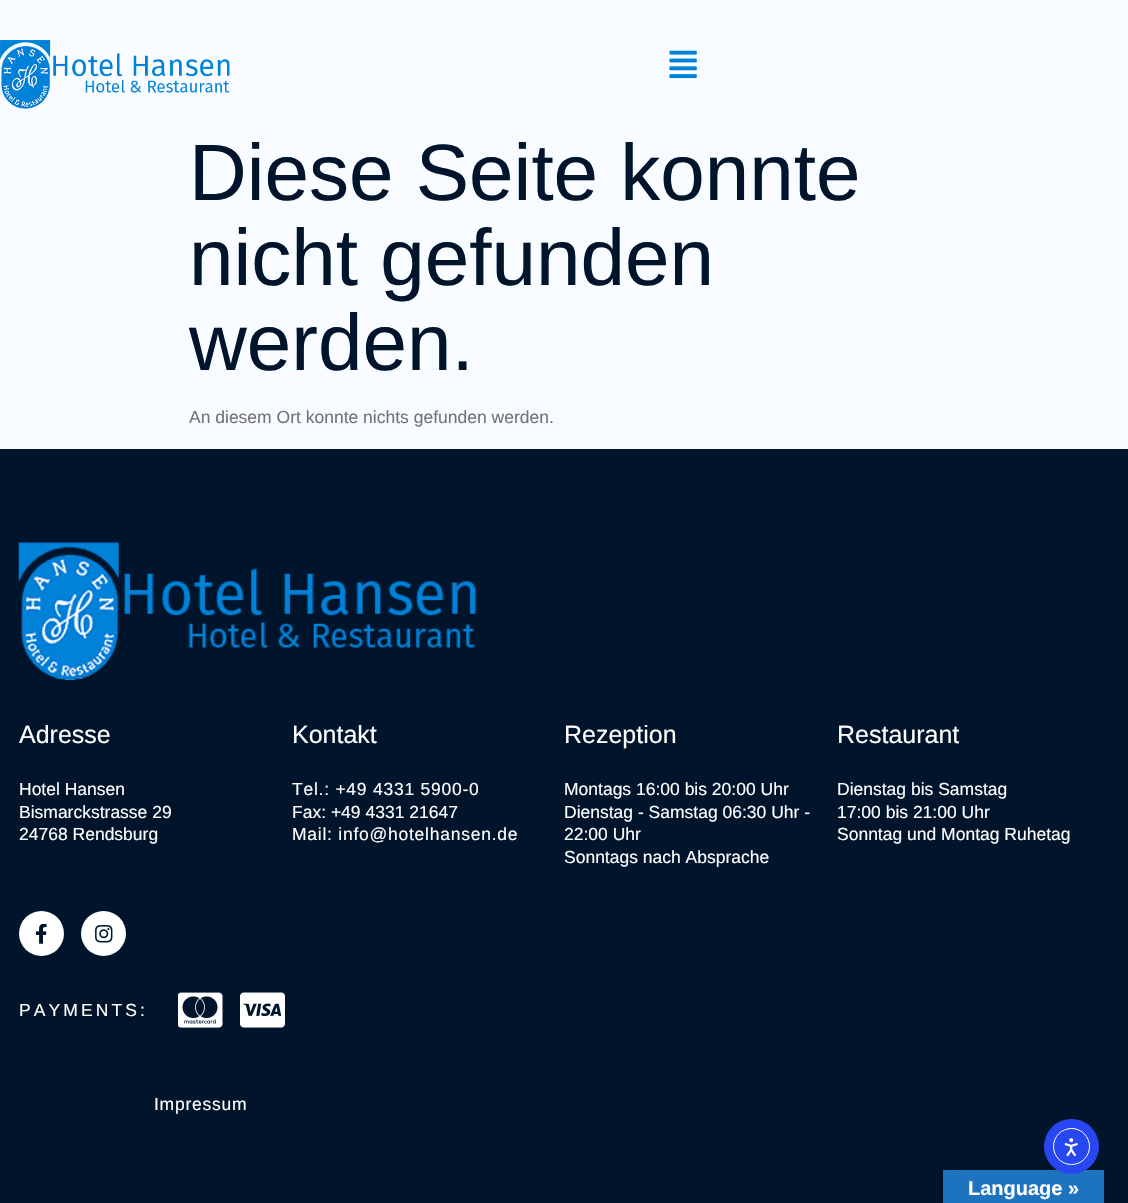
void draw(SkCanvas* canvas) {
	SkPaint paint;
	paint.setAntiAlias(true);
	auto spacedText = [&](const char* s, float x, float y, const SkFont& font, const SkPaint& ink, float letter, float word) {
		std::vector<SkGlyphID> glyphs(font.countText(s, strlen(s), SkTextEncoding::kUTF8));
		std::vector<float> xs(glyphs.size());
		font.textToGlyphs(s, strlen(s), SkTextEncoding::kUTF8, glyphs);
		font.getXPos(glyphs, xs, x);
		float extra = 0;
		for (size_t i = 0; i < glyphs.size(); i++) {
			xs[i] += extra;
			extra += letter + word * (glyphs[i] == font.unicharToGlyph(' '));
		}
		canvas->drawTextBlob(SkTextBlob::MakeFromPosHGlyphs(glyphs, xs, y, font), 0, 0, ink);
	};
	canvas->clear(0xfff8fbff);
	canvas->drawImageRect(SkImages::DeferredFromEncodedData(SkData::MakeFromFileName("img1.png")), SkRect::MakeXYWH(0, 40, 230, 69), SkSamplingOptions());
	canvas->drawImageRect(SkImages::DeferredFromEncodedData(SkData::MakeFromFileName("img2.png")), SkRect::MakeXYWH(669, 50, 28, 29), SkSamplingOptions());
	SkFont f1(fontMgr->matchFamilyStyle("Liberation Sans", SkFontStyle::Normal()), 80);
	f1.setSubpixel(true);
	paint.setColor(0xff00152c);
	canvas->drawString("Diese Seite konnte", 189, 200, f1, paint);
	canvas->drawString("nicht gefunden", 189, 285, f1, paint);
	canvas->drawString("werden.", 189, 370, f1, paint);
	SkFont f2(fontMgr->matchFamilyStyle("Liberation Sans", SkFontStyle::Normal()), 17.5);
	f2.setSubpixel(true);
	paint.setColor(0xff737373);
	canvas->drawString("An diesem Ort konnte nichts gefunden werden.", 189, 423, f2, paint);
	paint.setColor(0xff00152c);
	canvas->drawRect(SkRect::MakeXYWH(0, 449, 1128, 754), paint);
	canvas->drawImageRect(SkImages::DeferredFromEncodedData(SkData::MakeFromFileName("img3.png")), SkRect::MakeXYWH(18, 542, 459, 138), SkSamplingOptions());
	SkFont f3(fontMgr->matchFamilyStyle("Liberation Sans", SkFontStyle::Normal()), 25);
	f3.setSubpixel(true);
	paint.setColor(0xffffffff);
	canvas->drawString("Adresse", 19, 743, f3, paint);
	canvas->drawString("Hotel Hansen", 19, 795, f2, paint);
	canvas->drawString("Bismarckstrasse 29", 19, 818, f2, paint);
	canvas->drawString("24768 Rendsburg", 19, 840, f2, paint);
	canvas->drawString("Kontakt", 292, 743, f3, paint);
	spacedText("Tel.: +49 4331 5900-0", 292, 795, f2, paint, 0.75, 0);
	canvas->drawString("Fax: +49 4331 21647", 292, 818, f2, paint);
	spacedText("Mail: info@hotelhansen.de", 292, 840, f2, paint, 0.75, 0);
	canvas->drawString("Rezeption", 564, 743, f3, paint);
	canvas->drawString("Montags 16:00 bis 20:00 Uhr", 564, 795, f2, paint);
	canvas->drawString("Dienstag - Samstag 06:30 Uhr -", 564, 818, f2, paint);
	canvas->drawString("22:00 Uhr", 564, 840, f2, paint);
	canvas->drawString("Sonntags nach Absprache", 564, 863, f2, paint);
	canvas->drawString("Restaurant", 837, 743, f3, paint);
	canvas->drawString("Dienstag bis Samstag", 837, 795, f2, paint);
	canvas->drawString("17:00 bis 21:00 Uhr", 837, 818, f2, paint);
	canvas->drawString("Sonntag und Montag Ruhetag", 837, 840, f2, paint);
	canvas->drawCircle(41.5, 933.5, 22.5, paint);
	canvas->drawImageRect(SkImages::DeferredFromEncodedData(SkData::MakeFromFileName("img4.png")), SkRect::MakeXYWH(35, 924, 12, 20), SkSamplingOptions());
	canvas->drawCircle(103.5, 933.5, 22.5, paint);
	canvas->drawImageRect(SkImages::DeferredFromEncodedData(SkData::MakeFromFileName("img5.png")), SkRect::MakeXYWH(95, 925, 18, 18), SkSamplingOptions());
	spacedText("PAYMENTS:", 19, 1016, f2, paint, 3.1, 0);
	canvas->drawImageRect(SkImages::DeferredFromEncodedData(SkData::MakeFromFileName("img6.png")), SkRect::MakeXYWH(178, 992, 45, 36), SkSamplingOptions());
	canvas->drawImageRect(SkImages::DeferredFromEncodedData(SkData::MakeFromFileName("img7.png")), SkRect::MakeXYWH(240, 992, 45, 36), SkSamplingOptions());
	spacedText("Impressum", 154, 1110, f2, paint, 0.75, 0);
	paint.setColor(0x4d000000);
	paint.setMaskFilter(SkMaskFilter::MakeBlur(kNormal_SkBlurStyle, 5.5));
	canvas->drawRect(SkRect::MakeXYWH(943, 1170, 161, 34), paint);
	paint.setMaskFilter(nullptr);
	paint.setColor(0xff1e73be);
	canvas->drawRect(SkRect::MakeXYWH(943, 1170, 161, 33), paint);
	paint.setColor(0xff2847f3);
	canvas->drawCircle(1071.5, 1146.5, 27.5, paint);
	paint.setStroke(true);
	paint.setStrokeWidth(1);
	paint.setColor(0xffffffff);
	canvas->drawCircle(1071.5, 1146.5, 18, paint);
	canvas->drawImageRect(SkImages::DeferredFromEncodedData(SkData::MakeFromFileName("img8.png")), SkRect::MakeXYWH(1064, 1138, 14, 19), SkSamplingOptions());
	SkFont f4(fontMgr->matchFamilyStyle("Liberation Sans", SkFontStyle::Bold()), 20);
	f4.setSubpixel(true);
	paint.setStroke(false);
	canvas->drawString("Language »", 968, 1195, f4, paint);
}
